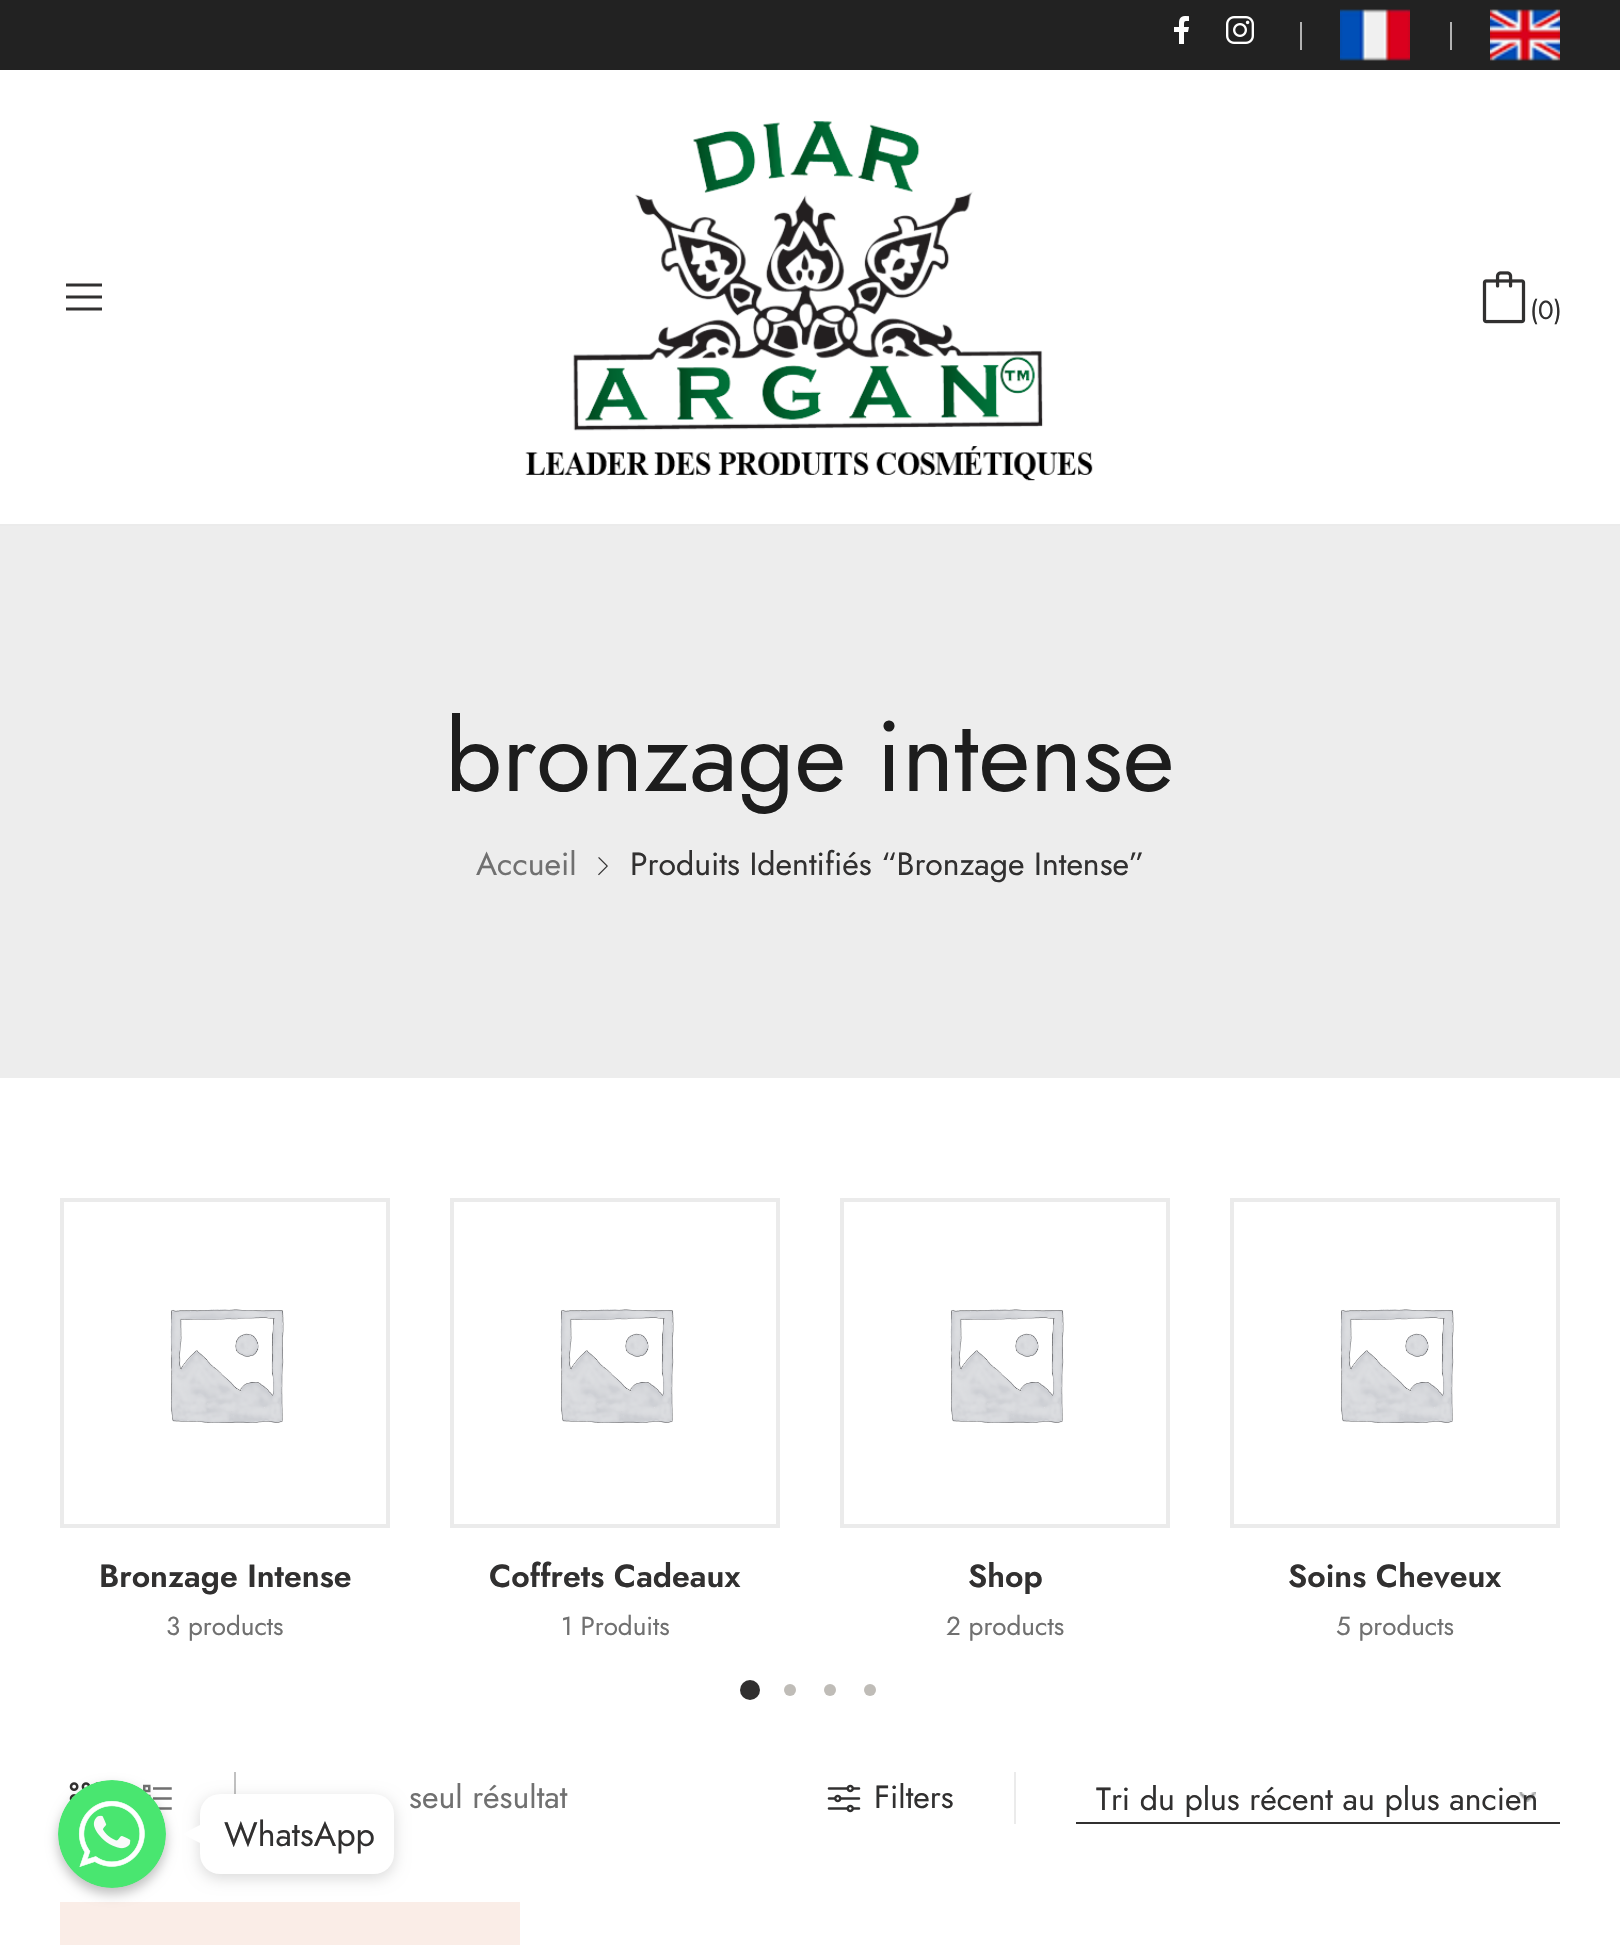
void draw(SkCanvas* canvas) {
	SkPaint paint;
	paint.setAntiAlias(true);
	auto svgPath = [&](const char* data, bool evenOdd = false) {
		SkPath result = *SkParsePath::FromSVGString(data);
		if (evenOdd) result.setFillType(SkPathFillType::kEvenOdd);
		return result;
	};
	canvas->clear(0xffffffff);
	paint.setColor(0xff222222);
	canvas->drawRect(SkRect::MakeXYWH(0, 0, 1620, 70), paint);
	canvas->drawImageRect(SkImages::DeferredFromEncodedData(SkData::MakeFromFileName("img1.png")), SkRect::MakeXYWH(1174, 16, 15, 28), SkSamplingOptions());
	canvas->drawImageRect(SkImages::DeferredFromEncodedData(SkData::MakeFromFileName("img2.png")), SkRect::MakeXYWH(1226, 16, 28, 28), SkSamplingOptions());
	paint.setColor(0xffb2b2b2);
	canvas->drawRect(SkRect::MakeXYWH(1300, 22, 2, 28), paint);
	canvas->drawImageRect(SkImages::DeferredFromEncodedData(SkData::MakeFromFileName("img3.png")), SkRect::MakeXYWH(1340, 9, 70, 52), SkSamplingOptions());
	canvas->drawRect(SkRect::MakeXYWH(1450, 22, 2, 28), paint);
	canvas->drawImageRect(SkImages::DeferredFromEncodedData(SkData::MakeFromFileName("img4.png")), SkRect::MakeXYWH(1490, 9, 70, 52), SkSamplingOptions());
	paint.setColor(0xffebebeb);
	canvas->drawRect(SkRect::MakeXYWH(0, 524, 1620, 2), paint);
	paint.setColor(0xff313030);
	canvas->drawPath(svgPath("M66 283.5V286.5H102V283.5ZM66 295.5V298.5H102V295.5ZM66 307.5V310.5H102V307.5Z"), paint);
	canvas->drawImageRect(SkImages::DeferredFromEncodedData(SkData::MakeFromFileName("img5.png")), SkRect::MakeXYWH(525, 120, 568, 361), SkSamplingOptions());
	canvas->drawImageRect(SkImages::DeferredFromEncodedData(SkData::MakeFromFileName("img6.png")), SkRect::MakeXYWH(1482, 271, 44, 53), SkSamplingOptions());
	SkFont f1(fontMgr->matchFamilyStyle("Jost", SkFontStyle::Normal()), 26);
	f1.setSubpixel(true);
	canvas->drawString("(0)", 1530, 319, f1, paint);
	paint.setColor(0xffededed);
	canvas->drawRect(SkRect::MakeXYWH(0, 526, 1620, 552), paint);
	SkFont f2(fontMgr->matchFamilyStyle("Jost", SkFontStyle::Normal()), 100);
	f2.setSubpixel(true);
	paint.setColor(0xff1d1d1d);
	canvas->drawString("bronzage intense", 445, 791, f2, paint);
	SkFont f3(fontMgr->matchFamilyStyle("Jost", SkFontStyle::Normal()), 32);
	f3.setSubpixel(true);
	paint.setColor(0xff707070);
	canvas->drawString("Accueil", 476, 875, f3, paint);
	canvas->drawImageRect(SkImages::DeferredFromEncodedData(SkData::MakeFromFileName("img7.png")), SkRect::MakeXYWH(598, 857, 10, 19), SkSamplingOptions());
	paint.setColor(0xff313030);
	canvas->drawString("Produits Identifiés “Bronzage Intense”", 630, 875, f3, paint);
	paint.setStroke(true);
	paint.setStrokeWidth(4);
	paint.setColor(0xffebebeb);
	canvas->drawRect(SkRect::MakeXYWH(62, 1200, 326, 326), paint);
	canvas->drawImageRect(SkImages::DeferredFromEncodedData(SkData::MakeFromFileName("img8.png")), SkRect::MakeXYWH(170, 1309, 114, 114), SkSamplingOptions());
	SkFont f4(fontMgr->matchFamilyStyle("Jost", SkFontStyle(600, SkFontStyle::kNormal_Width, SkFontStyle::kUpright_Slant)), 32);
	f4.setSubpixel(true);
	paint.setStroke(false);
	paint.setColor(0xff313030);
	canvas->drawString("Bronzage Intense", 99, 1587, f4, paint);
	paint.setColor(0xff707070);
	canvas->drawString("3 products", 166, 1635, f1, paint);
	paint.setStroke(true);
	paint.setColor(0xffebebeb);
	canvas->drawRect(SkRect::MakeXYWH(452, 1200, 326, 326), paint);
	canvas->drawImageRect(SkImages::DeferredFromEncodedData(SkData::MakeFromFileName("img8.png")), SkRect::MakeXYWH(560, 1309, 114, 114), SkSamplingOptions());
	paint.setStroke(false);
	paint.setColor(0xff313030);
	canvas->drawString("Coffrets Cadeaux", 489, 1587, f4, paint);
	paint.setColor(0xff707070);
	canvas->drawString("1 Produits", 561, 1635, f1, paint);
	paint.setStroke(true);
	paint.setColor(0xffebebeb);
	canvas->drawRect(SkRect::MakeXYWH(842, 1200, 326, 326), paint);
	canvas->drawImageRect(SkImages::DeferredFromEncodedData(SkData::MakeFromFileName("img8.png")), SkRect::MakeXYWH(950, 1309, 114, 114), SkSamplingOptions());
	paint.setStroke(false);
	paint.setColor(0xff313030);
	canvas->drawString("Shop", 968, 1587, f4, paint);
	paint.setColor(0xff707070);
	canvas->drawString("2 products", 946, 1635, f1, paint);
	paint.setStroke(true);
	paint.setColor(0xffebebeb);
	canvas->drawRect(SkRect::MakeXYWH(1232, 1200, 326, 326), paint);
	canvas->drawImageRect(SkImages::DeferredFromEncodedData(SkData::MakeFromFileName("img8.png")), SkRect::MakeXYWH(1340, 1309, 114, 114), SkSamplingOptions());
	paint.setStroke(false);
	paint.setColor(0xff313030);
	canvas->drawString("Soins Cheveux", 1288, 1587, f4, paint);
	paint.setColor(0xff707070);
	canvas->drawString("5 products", 1336, 1635, f1, paint);
	paint.setColor(0xff313030);
	canvas->drawCircle(750, 1690, 10, paint);
	paint.setColor(0xffbfbcb7);
	canvas->drawCircle(790, 1690, 6, paint);
	canvas->drawCircle(830, 1690, 6, paint);
	canvas->drawCircle(870, 1690, 6, paint);
	canvas->drawImageRect(SkImages::DeferredFromEncodedData(SkData::MakeFromFileName("img9.png")), SkRect::MakeXYWH(69, 1782, 29, 19), SkSamplingOptions());
	canvas->drawImageRect(SkImages::DeferredFromEncodedData(SkData::MakeFromFileName("img10.png")), SkRect::MakeXYWH(143, 1784, 29, 26), SkSamplingOptions());
	paint.setColor(0xffc1c1c1);
	canvas->drawRect(SkRect::MakeXYWH(234, 1772, 2, 22), paint);
	paint.setColor(0xff707070);
	canvas->drawString("seul résultat", 409, 1808, f3, paint);
	paint.setColor(0xffebebeb);
	canvas->drawRect(SkRect::MakeXYWH(1014, 1772, 2, 52), paint);
	canvas->drawImageRect(SkImages::DeferredFromEncodedData(SkData::MakeFromFileName("img11.png")), SkRect::MakeXYWH(827, 1784, 34, 29), SkSamplingOptions());
	paint.setColor(0xff313030);
	canvas->drawString("Filters", 874, 1808, f3, paint);
	canvas->drawImageRect(SkImages::DeferredFromEncodedData(SkData::MakeFromFileName("img12.png")), SkRect::MakeXYWH(1518, 1792, 18, 10), SkSamplingOptions());
	canvas->drawRect(SkRect::MakeXYWH(1076, 1822, 484, 2), paint);
	canvas->drawString("Tri du plus récent au plus ancien", 1096, 1810, f3, paint);
	paint.setColor(0xfffaede7);
	canvas->drawRect(SkRect::MakeXYWH(60, 1902, 460, 43), paint);
	paint.setColor(0x40000000);
	paint.setMaskFilter(SkMaskFilter::MakeBlur(kNormal_SkBlurStyle, 6));
	canvas->drawRoundRect(SkRect::MakeXYWH(58, 1786, 108, 108), 54, 54, paint);
	paint.setMaskFilter(nullptr);
	canvas->drawImageRect(SkImages::DeferredFromEncodedData(SkData::MakeFromFileName("img13.png")), SkRect::MakeXYWH(58, 1780, 108, 108), SkSamplingOptions());
	paint.setColor(0x26000000);
	paint.setMaskFilter(SkMaskFilter::MakeBlur(kNormal_SkBlurStyle, 7.5));
	canvas->drawRoundRect(SkRect::MakeXYWH(200, 1798, 194, 80), 20, 20, paint);
	paint.setMaskFilter(nullptr);
	paint.setColor(0xffffffff);
	canvas->drawRoundRect(SkRect::MakeXYWH(200, 1794, 194, 80), 20, 20, paint);
	canvas->drawPath(svgPath("M202 1824V1844L182 1834Z"), paint);
	SkFont f5(fontMgr->matchFamilyStyle("Jost", SkFontStyle::Normal()), 34);
	f5.setSubpixel(true);
	paint.setColor(0xff313030);
	canvas->drawString("WhatsApp", 224, 1846, f5, paint);
}
